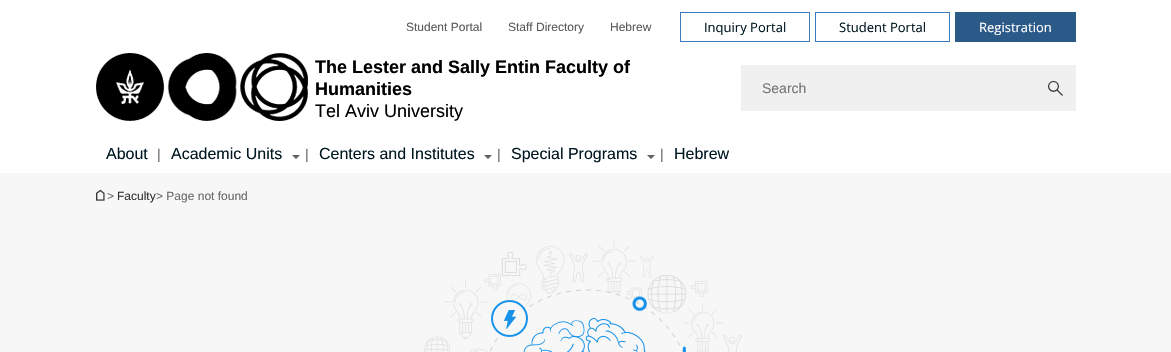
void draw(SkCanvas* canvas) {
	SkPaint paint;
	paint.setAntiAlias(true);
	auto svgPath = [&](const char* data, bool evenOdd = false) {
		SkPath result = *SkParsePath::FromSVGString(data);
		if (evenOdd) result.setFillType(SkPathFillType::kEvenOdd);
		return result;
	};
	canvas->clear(0xfff7f7f7);
	paint.setColor(0xffffffff);
	canvas->drawRect(SkRect::MakeXYWH(0, 0, 1171, 173), paint);
	SkFont f1(fontMgr->matchFamilyStyle("Liberation Sans", SkFontStyle::Normal()), 12);
	f1.setSubpixel(true);
	paint.setColor(0xff595959);
	canvas->drawString("Student Portal", 406, 31, f1, paint);
	canvas->drawString("Staff Directory", 508, 31, f1, paint);
	canvas->drawString("Hebrew", 610, 31, f1, paint);
	paint.setStroke(true);
	paint.setStrokeWidth(1);
	paint.setColor(0xff3b7bbd);
	canvas->drawRect(SkRect::MakeXYWH(680.5, 12.5, 129, 29), paint);
	SkFont f2(fontMgr->matchFamilyStyle("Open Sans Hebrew", SkFontStyle::Normal()), 13);
	f2.setSubpixel(true);
	paint.setStroke(false);
	paint.setColor(0xff001721);
	canvas->drawString("Inquiry Portal", 704, 32, f2, paint);
	paint.setStroke(true);
	paint.setColor(0xff3b7bbd);
	canvas->drawRect(SkRect::MakeXYWH(815.5, 12.5, 134, 29), paint);
	paint.setStroke(false);
	paint.setColor(0xff001721);
	canvas->drawString("Student Portal", 839, 32, f2, paint);
	paint.setColor(0xff2b5988);
	canvas->drawRect(SkRect::MakeXYWH(955, 12, 121, 30), paint);
	paint.setColor(0xffffffff);
	canvas->drawString("Registration", 979, 32, f2, paint);
	canvas->drawImageRect(SkImages::DeferredFromEncodedData(SkData::MakeFromFileName("img1.png")), SkRect::MakeXYWH(96, 53, 212, 68), SkSamplingOptions());
	SkFont f3(fontMgr->matchFamilyStyle("Liberation Sans", SkFontStyle::Bold()), 18);
	f3.setSubpixel(true);
	paint.setColor(0xff000000);
	canvas->drawString("The Lester and Sally Entin Faculty of", 315, 73, f3, paint);
	canvas->drawString("Humanities", 315, 95, f3, paint);
	SkFont f4(fontMgr->matchFamilyStyle("Liberation Sans", SkFontStyle::Normal()), 18);
	f4.setSubpixel(true);
	canvas->drawString("Tel Aviv University", 315, 117, f4, paint);
	paint.setColor(0xfff0f0f0);
	canvas->drawRect(SkRect::MakeXYWH(741, 65, 335, 46), paint);
	SkFont f5(fontMgr->matchFamilyStyle("Liberation Sans", SkFontStyle::Normal()), 14);
	f5.setSubpixel(true);
	paint.setColor(0xff757575);
	canvas->drawString("Search", 762, 93, f5, paint);
	canvas->drawImageRect(SkImages::DeferredFromEncodedData(SkData::MakeFromFileName("img2.png")), SkRect::MakeXYWH(1048, 80, 15, 16), SkSamplingOptions());
	SkFont f6(fontMgr->matchFamilyStyle("Liberation Sans", SkFontStyle::Normal()), 16);
	f6.setSubpixel(true);
	paint.setColor(0xff001721);
	canvas->drawString("About", 106, 159, f6, paint);
	paint.setColor(0xff696969);
	canvas->drawString("|", 157, 159, f5, paint);
	paint.setColor(0xff001721);
	canvas->drawString("Academic Units", 171, 159, f6, paint);
	paint.setColor(0xff606060);
	canvas->drawPath(svgPath("M292 155H300L296 159Z"), paint);
	paint.setColor(0xff696969);
	canvas->drawString("|", 305, 159, f5, paint);
	paint.setColor(0xff001721);
	canvas->drawString("Centers and Institutes", 319, 159, f6, paint);
	paint.setColor(0xff606060);
	canvas->drawPath(svgPath("M484 155H492L488 159Z"), paint);
	paint.setColor(0xff696969);
	canvas->drawString("|", 497, 159, f5, paint);
	paint.setColor(0xff001721);
	canvas->drawString("Special Programs", 511, 159, f6, paint);
	paint.setColor(0xff606060);
	canvas->drawPath(svgPath("M647 155H655L651 159Z"), paint);
	paint.setColor(0xff696969);
	canvas->drawString("|", 660, 159, f5, paint);
	paint.setColor(0xff001721);
	canvas->drawString("Hebrew", 674, 159, f6, paint);
	canvas->drawImageRect(SkImages::DeferredFromEncodedData(SkData::MakeFromFileName("img3.png")), SkRect::MakeXYWH(96, 189, 9, 12), SkSamplingOptions());
	paint.setColor(0xff696969);
	canvas->drawString(">", 107, 200, f1, paint);
	paint.setColor(0xff333333);
	canvas->drawString("Faculty", 117, 200, f1, paint);
	paint.setColor(0xff696969);
	canvas->drawString("> Page not found", 156, 200, f1, paint);
	canvas->drawImageRect(SkImages::DeferredFromEncodedData(SkData::MakeFromFileName("img4.png")), SkRect::MakeXYWH(424, 239, 318, 113), SkSamplingOptions());
}
